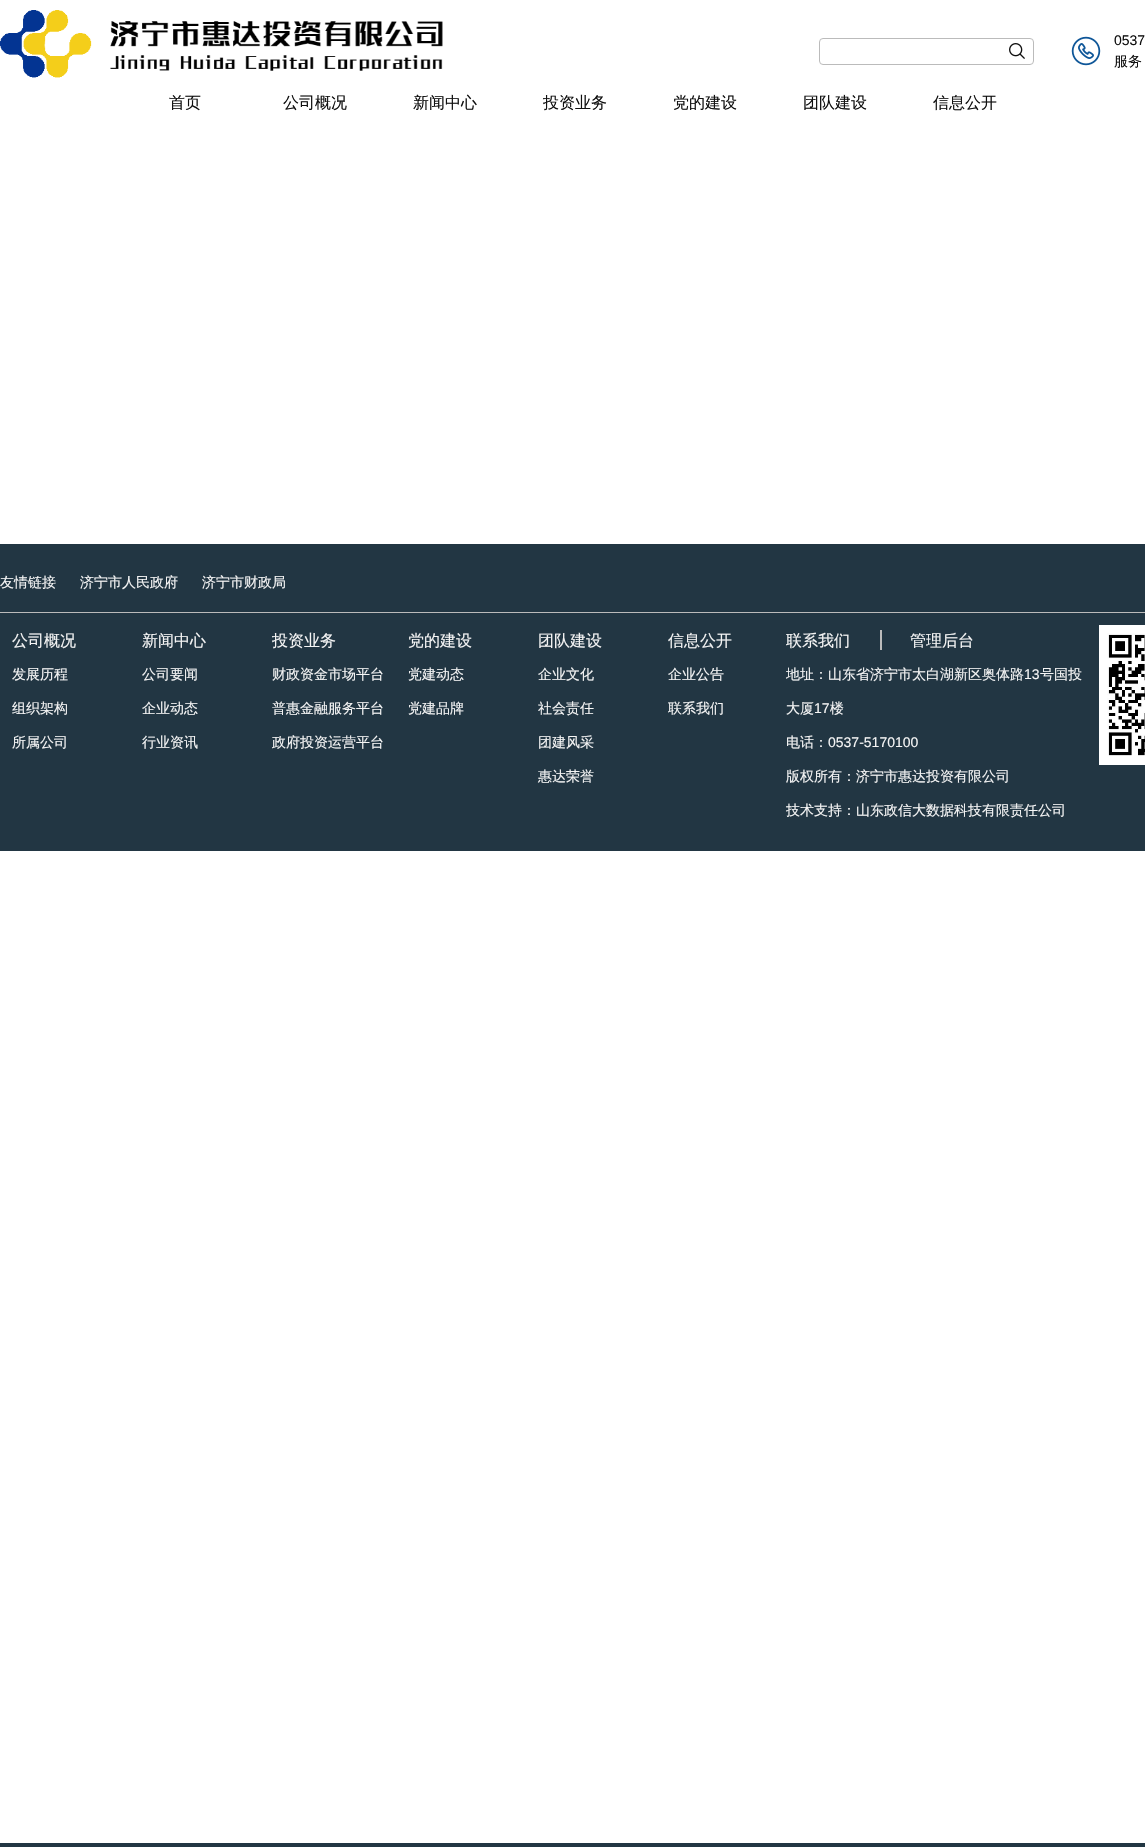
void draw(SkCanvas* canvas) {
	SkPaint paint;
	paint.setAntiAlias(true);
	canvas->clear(0xffffffff);
	canvas->drawImageRect(SkImages::DeferredFromEncodedData(SkData::MakeFromFileName("img1.png")), SkRect::MakeXYWH(0, 10, 443, 68), SkSamplingOptions());
	paint.setStroke(true);
	paint.setStrokeWidth(1);
	paint.setColor(0xffbbbbbb);
	canvas->drawRoundRect(SkRect::MakeXYWH(819.5, 38.5, 214, 26), 3.5, 3.5, paint);
	canvas->drawImageRect(SkImages::DeferredFromEncodedData(SkData::MakeFromFileName("img2.png")), SkRect::MakeXYWH(1009, 43, 16, 16), SkSamplingOptions());
	canvas->drawImageRect(SkImages::DeferredFromEncodedData(SkData::MakeFromFileName("img3.png")), SkRect::MakeXYWH(1071, 36, 30, 30), SkSamplingOptions());
	SkFont f1(fontMgr->matchFamilyStyle("Liberation Sans", SkFontStyle::Normal()), 14);
	f1.setSubpixel(true);
	paint.setStroke(false);
	paint.setColor(0xff101010);
	canvas->drawString("0537", 1114, 45, f1, paint);
	SkFont f2(fontMgr->matchFamilyStyle("WenQuanYi Zen Hei", SkFontStyle(500, SkFontStyle::kNormal_Width, SkFontStyle::kUpright_Slant)), 14);
	f2.setSubpixel(true);
	canvas->drawString("服务", 1114, 66, f2, paint);
	SkFont f3(fontMgr->matchFamilyStyle("WenQuanYi Zen Hei", SkFontStyle(500, SkFontStyle::kNormal_Width, SkFontStyle::kUpright_Slant)), 16);
	f3.setSubpixel(true);
	canvas->drawString("首页", 169, 108, f3, paint);
	canvas->drawString("公司概况", 283, 108, f3, paint);
	canvas->drawString("新闻中心", 413, 108, f3, paint);
	canvas->drawString("投资业务", 543, 108, f3, paint);
	canvas->drawString("党的建设", 673, 108, f3, paint);
	canvas->drawString("团队建设", 803, 108, f3, paint);
	canvas->drawString("信息公开", 933, 108, f3, paint);
	paint.setColor(0xff223643);
	canvas->drawRect(SkRect::MakeXYWH(0, 544, 1145, 307), paint);
	paint.setColor(0xffbbbbbb);
	canvas->drawRect(SkRect::MakeXYWH(0, 612, 1145, 1), paint);
	paint.setColor(0xfff5f5f5);
	canvas->drawString("友情链接", 0, 587, f2, paint);
	canvas->drawString("济宁市人民政府", 80, 587, f2, paint);
	canvas->drawString("济宁市财政局", 202, 587, f2, paint);
	canvas->drawString("公司概况", 12, 646, f3, paint);
	canvas->drawString("发展历程", 12, 679, f2, paint);
	canvas->drawString("组织架构", 12, 713, f2, paint);
	canvas->drawString("所属公司", 12, 747, f2, paint);
	canvas->drawString("新闻中心", 142, 646, f3, paint);
	canvas->drawString("公司要闻", 142, 679, f2, paint);
	canvas->drawString("企业动态", 142, 713, f2, paint);
	canvas->drawString("行业资讯", 142, 747, f2, paint);
	canvas->drawString("投资业务", 272, 646, f3, paint);
	canvas->drawString("财政资金市场平台", 272, 679, f2, paint);
	canvas->drawString("普惠金融服务平台", 272, 713, f2, paint);
	canvas->drawString("政府投资运营平台", 272, 747, f2, paint);
	canvas->drawString("党的建设", 408, 646, f3, paint);
	canvas->drawString("党建动态", 408, 679, f2, paint);
	canvas->drawString("党建品牌", 408, 713, f2, paint);
	canvas->drawString("团队建设", 538, 646, f3, paint);
	canvas->drawString("企业文化", 538, 679, f2, paint);
	canvas->drawString("社会责任", 538, 713, f2, paint);
	canvas->drawString("团建风采", 538, 747, f2, paint);
	canvas->drawString("惠达荣誉", 538, 781, f2, paint);
	canvas->drawString("信息公开", 668, 646, f3, paint);
	canvas->drawString("企业公告", 668, 679, f2, paint);
	canvas->drawString("联系我们", 668, 713, f2, paint);
	canvas->drawString("联系我们", 786, 646, f3, paint);
	paint.setColor(0xffbbbbbb);
	canvas->drawRect(SkRect::MakeXYWH(880, 630, 2, 20), paint);
	paint.setColor(0xfff5f5f5);
	canvas->drawString("管理后台", 910, 646, f3, paint);
	canvas->drawString("地址：山东省济宁市太白湖新区奥体路", 786, 679, f2, paint);
	canvas->drawString("13", 1024, 679, f1, paint);
	canvas->drawString("号国投", 1040, 679, f2, paint);
	canvas->drawString("大厦", 786, 713, f2, paint);
	canvas->drawString("17", 814, 713, f1, paint);
	canvas->drawString("楼", 830, 713, f2, paint);
	canvas->drawString("电话：", 786, 747, f2, paint);
	canvas->drawString("0537-5170100", 828, 747, f1, paint);
	canvas->drawString("版权所有：济宁市惠达投资有限公司", 786, 781, f2, paint);
	canvas->drawString("技术支持：山东政信大数据科技有限责任公司", 786, 815, f2, paint);
	canvas->drawImageRect(SkImages::DeferredFromEncodedData(SkData::MakeFromFileName("img4.png")), SkRect::MakeXYWH(1099, 625, 46, 140), SkSamplingOptions());
	paint.setColor(0xff223643);
	canvas->drawRect(SkRect::MakeXYWH(0, 1843, 1145, 4), paint);
}
